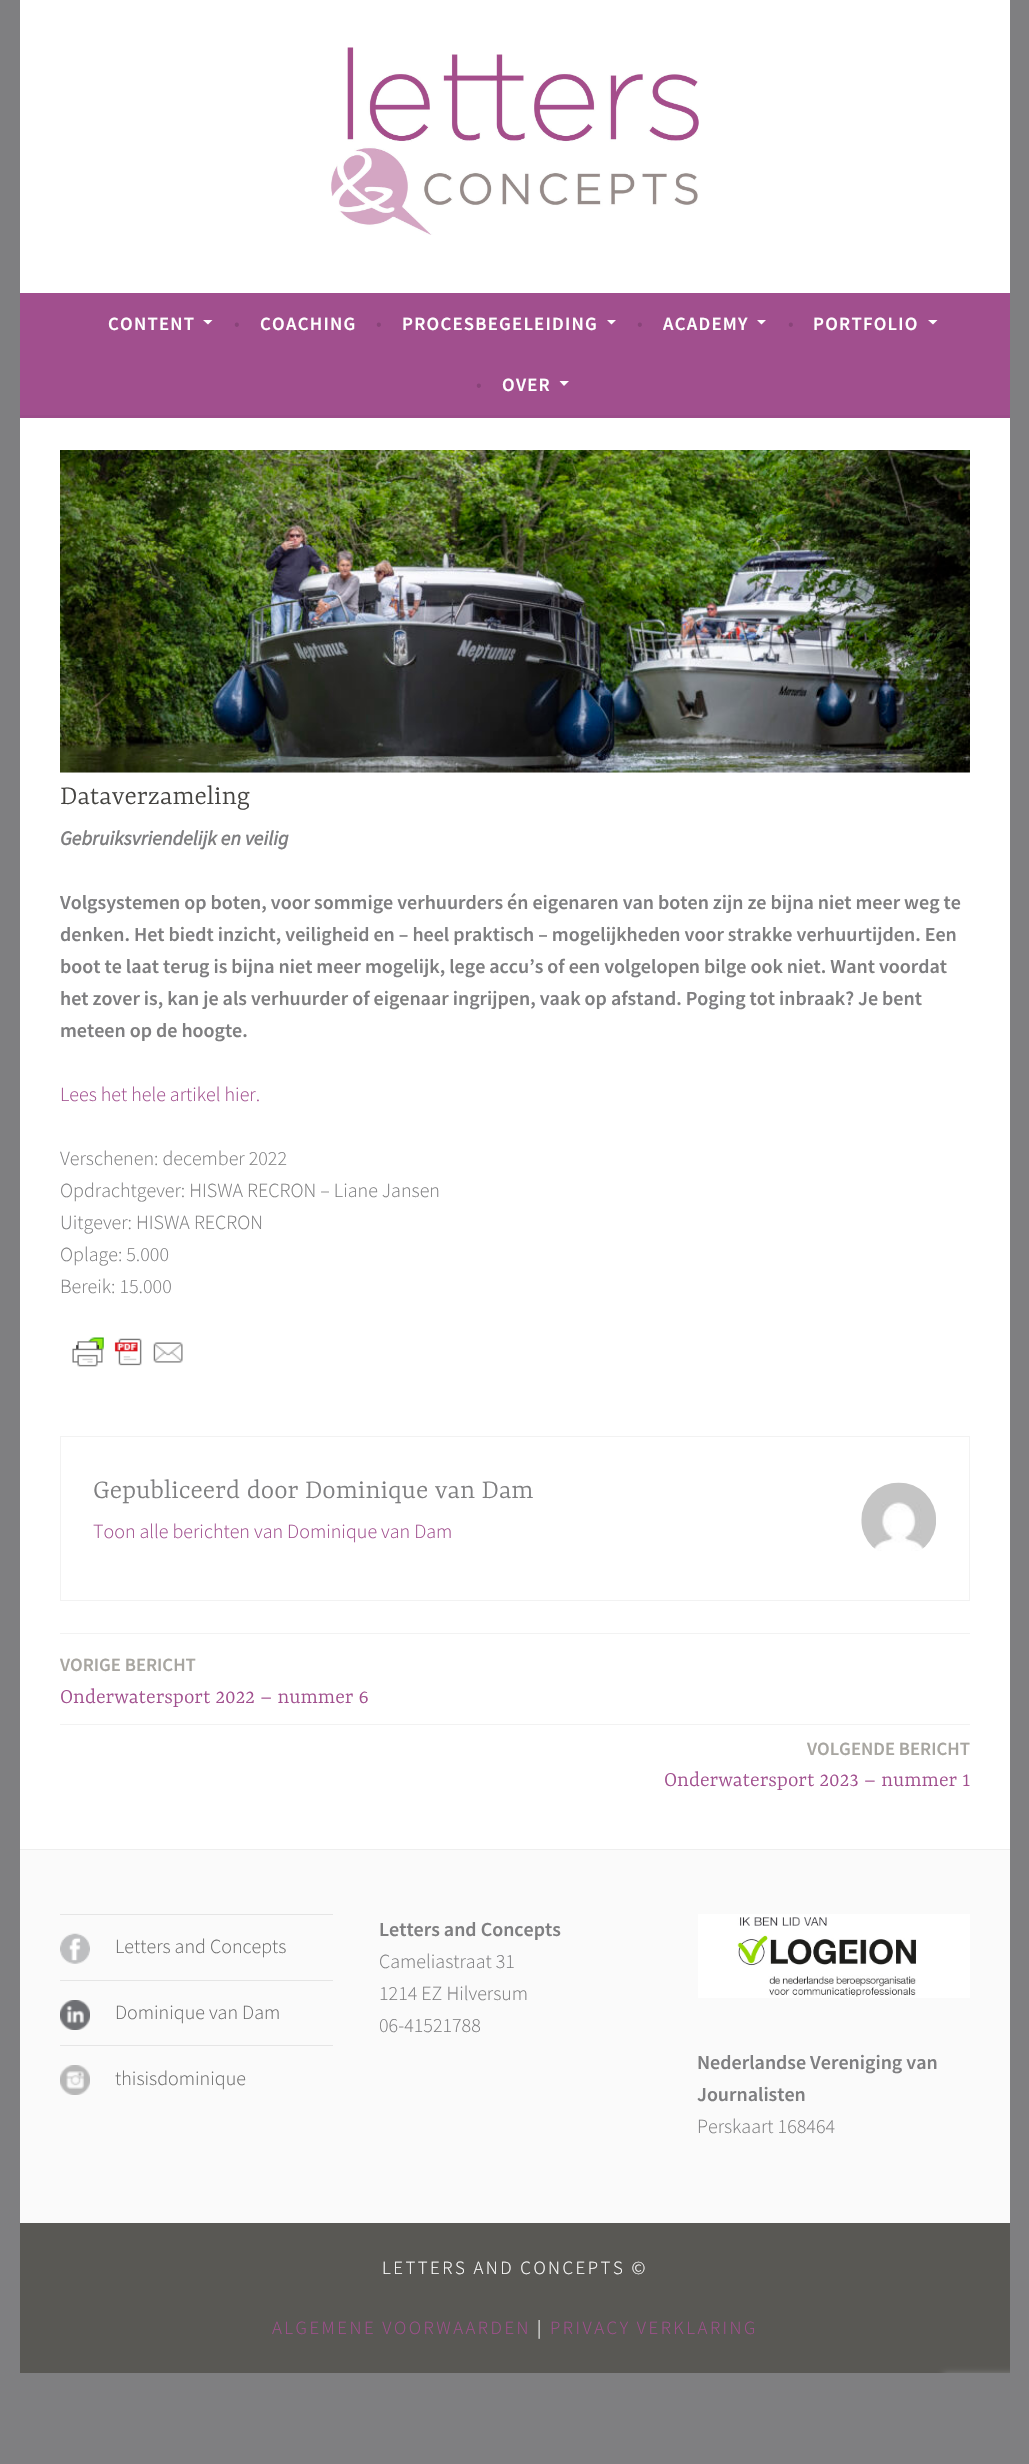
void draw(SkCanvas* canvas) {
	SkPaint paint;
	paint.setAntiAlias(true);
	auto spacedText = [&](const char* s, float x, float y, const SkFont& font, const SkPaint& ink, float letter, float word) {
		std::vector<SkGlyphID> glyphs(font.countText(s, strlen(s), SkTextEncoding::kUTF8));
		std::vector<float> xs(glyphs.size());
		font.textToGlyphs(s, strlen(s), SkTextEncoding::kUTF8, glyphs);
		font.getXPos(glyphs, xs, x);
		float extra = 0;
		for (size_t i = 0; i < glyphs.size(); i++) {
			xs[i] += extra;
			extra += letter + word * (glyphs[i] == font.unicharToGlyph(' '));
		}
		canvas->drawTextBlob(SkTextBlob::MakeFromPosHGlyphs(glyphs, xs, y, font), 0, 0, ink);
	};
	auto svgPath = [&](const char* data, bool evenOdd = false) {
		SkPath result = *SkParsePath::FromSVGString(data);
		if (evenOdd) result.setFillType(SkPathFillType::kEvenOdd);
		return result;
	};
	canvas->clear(0xff7f7f81);
	paint.setColor(0xffffffff);
	canvas->drawRect(SkRect::MakeXYWH(20, 0, 990, 293), paint);
	canvas->drawImageRect(SkImages::DeferredFromEncodedData(SkData::MakeFromFileName("img1.png")), SkRect::MakeXYWH(331, 47, 368, 188), SkSamplingOptions());
	paint.setColor(0xffa14f8e);
	canvas->drawRect(SkRect::MakeXYWH(20, 293, 990, 122), paint);
	paint.setColor(0xff9c4d8a);
	canvas->drawRect(SkRect::MakeXYWH(20, 415, 990, 3), paint);
	SkFont f1(fontMgr->matchFamilyStyle("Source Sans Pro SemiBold", SkFontStyle(600, SkFontStyle::kNormal_Width, SkFontStyle::kUpright_Slant)), 18.75);
	f1.setSubpixel(true);
	paint.setColor(0xffffffff);
	spacedText("CONTENT", 108, 330, f1, paint, 1.25, 0);
	canvas->drawPath(svgPath("M203 320H212.5L208 324.5Z"), paint);
	SkFont f2(fontMgr->matchFamilyStyle("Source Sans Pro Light", SkFontStyle(300, SkFontStyle::kNormal_Width, SkFontStyle::kUpright_Slant)), 20);
	f2.setSubpixel(true);
	paint.setColor(0xff894379);
	canvas->drawString("•", 234, 330, f2, paint);
	paint.setColor(0xffffffff);
	spacedText("COACHING", 260, 330, f1, paint, 1.25, 0);
	paint.setColor(0xff894379);
	canvas->drawString("•", 376, 330, f2, paint);
	paint.setColor(0xffffffff);
	spacedText("PROCESBEGELEIDING", 402, 330, f1, paint, 1.25, 0);
	canvas->drawPath(svgPath("M607 320H616L611.5 324.5Z"), paint);
	paint.setColor(0xff894379);
	canvas->drawString("•", 637, 330, f2, paint);
	paint.setColor(0xffffffff);
	spacedText("ACADEMY", 663, 330, f1, paint, 1.25, 0);
	canvas->drawPath(svgPath("M757 320H766L761.5 324.5Z"), paint);
	paint.setColor(0xff894379);
	canvas->drawString("•", 788, 330, f2, paint);
	paint.setColor(0xffffffff);
	spacedText("PORTFOLIO", 813, 330, f1, paint, 1.25, 0);
	canvas->drawPath(svgPath("M928 320H937.5L933 324.5Z"), paint);
	paint.setColor(0xff894379);
	canvas->drawString("•", 476, 391, f2, paint);
	paint.setColor(0xffffffff);
	spacedText("OVER", 502, 391, f1, paint, 1.25, 0);
	canvas->drawPath(svgPath("M559.5 381H569L564 386Z"), paint);
	canvas->drawRect(SkRect::MakeXYWH(20, 418, 990, 1431), paint);
	paint.setColor(0xfff8f9f8);
	canvas->drawRect(SkRect::MakeXYWH(60, 772, 910, 1), paint);
	canvas->drawImageRect(SkImages::DeferredFromEncodedData(SkData::MakeFromFileName("img2.png")), SkRect::MakeXYWH(60, 450, 910, 323), SkSamplingOptions());
	SkFont f3(fontMgr->matchFamilyStyle("Yrsa", SkFontStyle(300, SkFontStyle::kNormal_Width, SkFontStyle::kUpright_Slant)), 28.75);
	f3.setSubpixel(true);
	paint.setColor(0xff444340);
	canvas->drawString("Dataverzameling", 60, 804, f3, paint);
	SkFont f4(fontMgr->matchFamilyStyle("Source Sans Pro", SkFontStyle::BoldItalic()), 20);
	f4.setSubpixel(true);
	paint.setColor(0xff7f7f81);
	canvas->drawString("Gebruiksvriendelijk en veilig", 60, 845, f4, paint);
	SkFont f5(fontMgr->matchFamilyStyle("Source Sans Pro SemiBold", SkFontStyle(600, SkFontStyle::kNormal_Width, SkFontStyle::kUpright_Slant)), 20);
	f5.setSubpixel(true);
	canvas->drawString("Volgsystemen op boten, voor sommige verhuurders én eigenaren van boten zijn ze bijna niet meer weg te", 60, 909, f5, paint);
	canvas->drawString("denken. Het biedt inzicht, veiligheid en – heel praktisch – mogelijkheden voor strakke verhuurtijden. Een", 60, 941, f5, paint);
	canvas->drawString("boot te laat terug is bijna niet meer mogelijk, lege accu’s of een volgelopen bilge ook niet. Want voordat", 60, 973, f5, paint);
	canvas->drawString("het zover is, kan je als verhuurder of eigenaar ingrijpen, vaak op afstand. Poging tot inbraak? Je bent", 60, 1005, f5, paint);
	canvas->drawString("meteen op de hoogte.", 60, 1037, f5, paint);
	paint.setColor(0xffa14f8e);
	canvas->drawString("Lees het hele artikel hier.", 60, 1101, f2, paint);
	paint.setColor(0xff7f7f81);
	canvas->drawString("Verschenen: december 2022", 60, 1165, f2, paint);
	canvas->drawString("Opdrachtgever: HISWA RECRON – Liane Jansen", 60, 1197, f2, paint);
	canvas->drawString("Uitgever: HISWA RECRON", 60, 1229, f2, paint);
	canvas->drawString("Oplage: 5.000", 60, 1261, f2, paint);
	canvas->drawString("Bereik: 15.000", 60, 1293, f2, paint);
	canvas->drawImageRect(SkImages::DeferredFromEncodedData(SkData::MakeFromFileName("img3.png")), SkRect::MakeXYWH(72, 1337, 111, 30), SkSamplingOptions());
	paint.setStroke(true);
	paint.setStrokeWidth(1);
	paint.setColor(0xfff2f2f2);
	canvas->drawRect(SkRect::MakeXYWH(60.5, 1436.5, 909, 164), paint);
	paint.setStroke(false);
	paint.setColor(0xff7f7f81);
	canvas->drawString("Gepubliceerd door Dominique van Dam", 93, 1498, f3, paint);
	canvas->drawImageRect(SkImages::DeferredFromEncodedData(SkData::MakeFromFileName("img4.png")), SkRect::MakeXYWH(861, 1482, 75, 69), SkSamplingOptions());
	paint.setColor(0xffa14f8e);
	canvas->drawString("Toon alle berichten van Dominique van Dam", 93, 1538, f2, paint);
	paint.setColor(0xfff2f2f2);
	canvas->drawRect(SkRect::MakeXYWH(60, 1633, 910, 1), paint);
	paint.setColor(0xffa8a6a1);
	canvas->drawString("VORIGE BERICHT", 60, 1671, f1, paint);
	SkFont f6(fontMgr->matchFamilyStyle("Yrsa", SkFontStyle(300, SkFontStyle::kNormal_Width, SkFontStyle::kUpright_Slant)), 22.5);
	f6.setSubpixel(true);
	paint.setColor(0xffa14f8e);
	canvas->drawString("Onderwatersport 2022 – nummer 6", 60, 1703, f6, paint);
	paint.setColor(0xfff2f2f2);
	canvas->drawRect(SkRect::MakeXYWH(60, 1724, 910, 1), paint);
	paint.setColor(0xffa8a6a1);
	canvas->drawString("VOLGENDE BERICHT", 807, 1755, f1, paint);
	paint.setColor(0xffa14f8e);
	canvas->drawString("Onderwatersport 2023 – nummer 1", 664, 1786, f6, paint);
	paint.setColor(0xfffafafa);
	canvas->drawRect(SkRect::MakeXYWH(20, 1850, 990, 373), paint);
	paint.setColor(0xffeeeeee);
	canvas->drawRect(SkRect::MakeXYWH(20, 1849, 990, 1), paint);
	paint.setColor(0xffe5e5e5);
	canvas->drawRect(SkRect::MakeXYWH(60, 1914, 273, 1), paint);
	canvas->drawImageRect(SkImages::DeferredFromEncodedData(SkData::MakeFromFileName("img5.png")), SkRect::MakeXYWH(60, 1933, 30, 31), SkSamplingOptions());
	paint.setColor(0xff6d6d6d);
	canvas->drawString("Letters and Concepts", 115, 1953, f2, paint);
	paint.setColor(0xffe5e5e5);
	canvas->drawRect(SkRect::MakeXYWH(60, 1980, 273, 1), paint);
	canvas->drawImageRect(SkImages::DeferredFromEncodedData(SkData::MakeFromFileName("img6.png")), SkRect::MakeXYWH(60, 2000, 30, 30), SkSamplingOptions());
	paint.setColor(0xff6d6d6d);
	canvas->drawString("Dominique van Dam", 115, 2019, f2, paint);
	paint.setColor(0xffe5e5e5);
	canvas->drawRect(SkRect::MakeXYWH(60, 2045, 273, 1), paint);
	canvas->drawImageRect(SkImages::DeferredFromEncodedData(SkData::MakeFromFileName("img7.png")), SkRect::MakeXYWH(60, 2065, 30, 30), SkSamplingOptions());
	paint.setColor(0xff6d6d6d);
	canvas->drawString("thisisdominique", 115, 2085, f2, paint);
	paint.setColor(0xff7f7f81);
	canvas->drawString("Letters and Concepts", 379, 1936, f5, paint);
	canvas->drawString("Cameliastraat 31", 379, 1968, f2, paint);
	canvas->drawString("1214 EZ Hilversum", 379, 2000, f2, paint);
	canvas->drawString("06-41521788", 379, 2032, f2, paint);
	canvas->drawImageRect(SkImages::DeferredFromEncodedData(SkData::MakeFromFileName("img8.png")), SkRect::MakeXYWH(698, 1914, 272, 84), SkSamplingOptions());
	canvas->drawString("Nederlandse Vereniging van", 697, 2069, f5, paint);
	canvas->drawString("Journalisten", 697, 2101, f5, paint);
	canvas->drawString("Perskaart 168464", 697, 2133, f2, paint);
	paint.setColor(0xff595854);
	canvas->drawRect(SkRect::MakeXYWH(20, 2223, 990, 150), paint);
	SkFont f7(fontMgr->matchFamilyStyle("Source Sans Pro Light", SkFontStyle(300, SkFontStyle::kNormal_Width, SkFontStyle::kUpright_Slant)), 18.75);
	f7.setSubpixel(true);
	paint.setColor(0xffffffff);
	spacedText("LETTERS AND CONCEPTS ©", 382, 2274, f7, paint, 2.5, 0);
	paint.setColor(0xffa14f8e);
	spacedText("ALGEMENE VOORWAARDEN", 272, 2334, f7, paint, 2.5, 0);
	paint.setColor(0xffffffff);
	spacedText("|", 537, 2334, f7, paint, 2.5, 0);
	paint.setColor(0xffa14f8e);
	spacedText("PRIVACY VERKLARING", 550, 2334, f7, paint, 2.5, 0);
	canvas->save();
	canvas->clipPath(svgPath("M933 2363H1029V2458H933ZM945.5 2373H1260.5C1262 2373 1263 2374 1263 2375.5V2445.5C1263 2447 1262 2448 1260.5 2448H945.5C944 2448 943 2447 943 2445.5V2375.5C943 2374 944 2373 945.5 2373Z", true), true);
	paint.setColor(0xff808080);
	paint.setMaskFilter(SkMaskFilter::MakeBlur(kNormal_SkBlurStyle, 3));
	canvas->drawRoundRect(SkRect::MakeXYWH(943, 2373, 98, 75), 2.5, 2.5, paint);
	paint.setMaskFilter(nullptr);
	canvas->restore();
}
